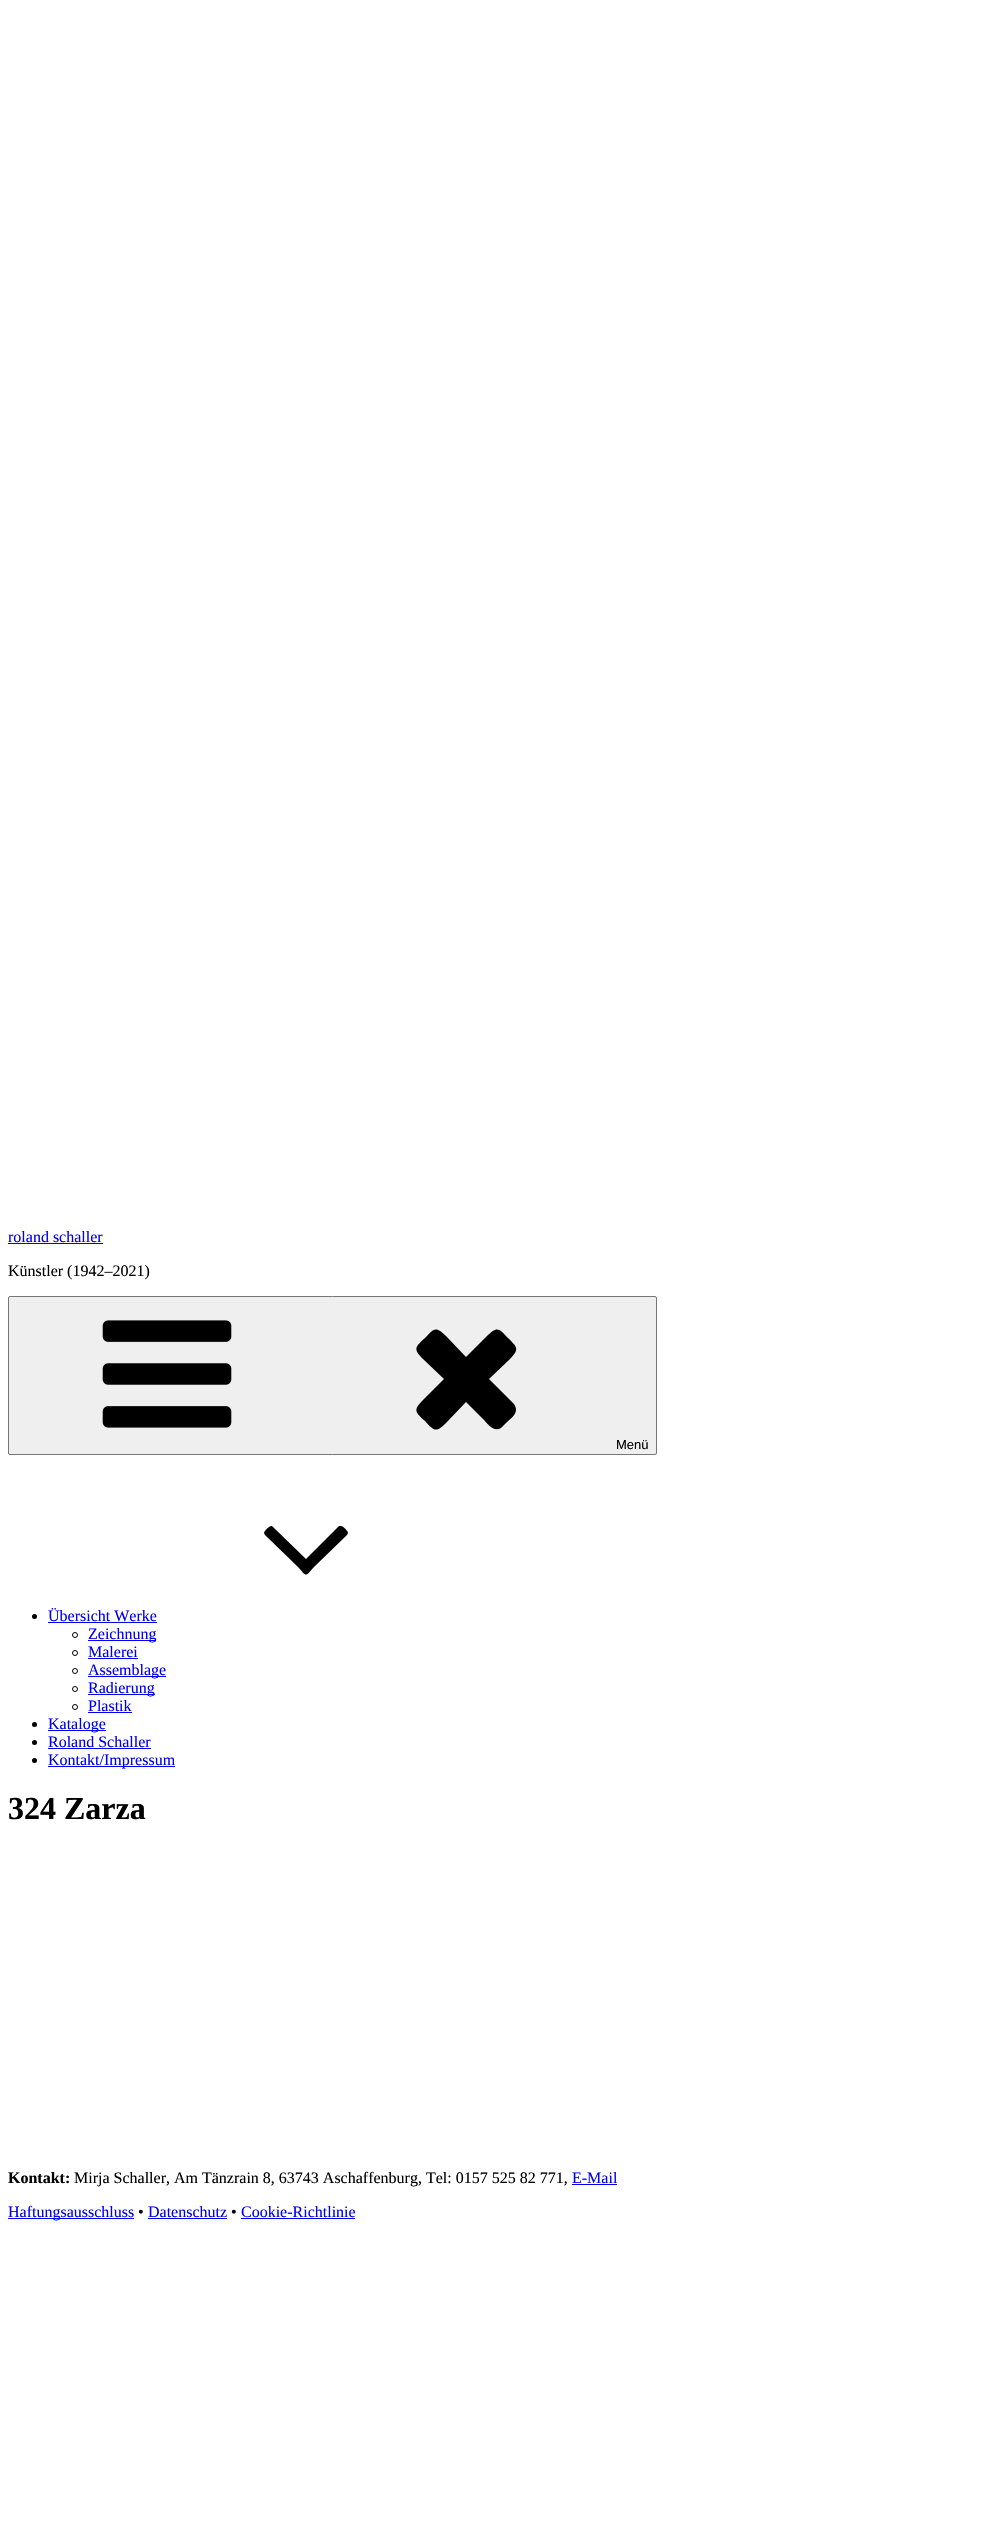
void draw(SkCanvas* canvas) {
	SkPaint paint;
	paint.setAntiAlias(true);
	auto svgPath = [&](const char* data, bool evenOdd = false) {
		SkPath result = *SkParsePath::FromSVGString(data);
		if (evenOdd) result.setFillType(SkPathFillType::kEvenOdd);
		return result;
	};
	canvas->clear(0xffffffff);
	SkFont f1(fontMgr->matchFamilyStyle("Liberation Serif", SkFontStyle::Normal()), 16);
	f1.setSubpixel(true);
	paint.setColor(0xff0000ee);
	canvas->drawString("roland schaller", 8, 1242, f1, paint);
	canvas->drawRect(SkRect::MakeXYWH(8, 1243, 95, 1), paint);
	paint.setColor(0xff000000);
	canvas->drawString("Künstler (1942–2021)", 8, 1276, f1, paint);
	paint.setColor(0xffefefef);
	canvas->drawRoundRect(SkRect::MakeXYWH(8.5, 1296.5, 648, 158), 1.5, 1.5, paint);
	paint.setStroke(true);
	paint.setStrokeWidth(1);
	paint.setColor(0xff767676);
	canvas->drawRoundRect(SkRect::MakeXYWH(8.5, 1296.5, 648, 158), 1.5, 1.5, paint);
	canvas->drawImageRect(SkImages::DeferredFromEncodedData(SkData::MakeFromFileName("img1.png")), SkRect::MakeXYWH(102, 1320, 130, 108), SkSamplingOptions());
	paint.setStroke(false);
	paint.setColor(0xff000000);
	canvas->drawPath(svgPath("M516 1410C516 1415 510 1419 506 1423L501 1428C494 1433 487 1423 483 1419L466 1402L446 1423C436 1433 434 1431 425 1421C415 1412 413 1410 423 1400L444 1379L423 1359C413 1349 415 1347 425 1338C434 1328 436 1326 446 1336L466 1357L487 1336C497 1326 499 1328 508 1338C517 1347 520 1349 510 1359L489 1379L514 1404C515 1406 516 1407 516 1410Z"), paint);
	SkFont f2(fontMgr->matchFamilyStyle("Liberation Sans", SkFontStyle::Normal()), 13);
	f2.setSubpixel(true);
	canvas->drawString("Menü", 616, 1449, f2, paint);
	canvas->drawCircle(34.5, 1616.5, 2.5, paint);
	paint.setColor(0xff0000ee);
	canvas->drawString("Übersicht Werke", 48, 1621, f1, paint);
	canvas->drawRect(SkRect::MakeXYWH(48, 1622, 109, 1), paint);
	paint.setColor(0xff000000);
	canvas->drawPath(svgPath("M348 1533L347 1535L314 1567C305 1577 307 1577 298 1567L265 1535L264 1533C264 1531 270 1525 272 1526L306 1559L339 1526H341C343 1526 348 1531 348 1533Z"), paint);
	paint.setStroke(true);
	canvas->drawCircle(75, 1635, 2.5, paint);
	paint.setStroke(false);
	paint.setColor(0xff0000ee);
	canvas->drawRect(SkRect::MakeXYWH(88, 1640, 68, 1), paint);
	canvas->drawString("Zeichnung", 88, 1639, f1, paint);
	paint.setStroke(true);
	paint.setColor(0xff000000);
	canvas->drawCircle(75, 1653, 2.5, paint);
	paint.setStroke(false);
	paint.setColor(0xff0000ee);
	canvas->drawString("Malerei", 88, 1657, f1, paint);
	canvas->drawRect(SkRect::MakeXYWH(88, 1658, 50, 1), paint);
	paint.setStroke(true);
	paint.setColor(0xff000000);
	canvas->drawCircle(75, 1671, 2.5, paint);
	paint.setStroke(false);
	paint.setColor(0xff0000ee);
	canvas->drawRect(SkRect::MakeXYWH(88, 1676, 78, 1), paint);
	canvas->drawString("Assemblage", 88, 1675, f1, paint);
	paint.setStroke(true);
	paint.setColor(0xff000000);
	canvas->drawCircle(75, 1689, 2.5, paint);
	paint.setStroke(false);
	paint.setColor(0xff0000ee);
	canvas->drawRect(SkRect::MakeXYWH(88, 1694, 67, 1), paint);
	canvas->drawString("Radierung", 88, 1693, f1, paint);
	paint.setStroke(true);
	paint.setColor(0xff000000);
	canvas->drawCircle(75, 1707, 2.5, paint);
	paint.setStroke(false);
	paint.setColor(0xff0000ee);
	canvas->drawString("Plastik", 88, 1711, f1, paint);
	canvas->drawRect(SkRect::MakeXYWH(88, 1712, 44, 1), paint);
	paint.setColor(0xff000000);
	canvas->drawCircle(34.5, 1724.5, 2.5, paint);
	paint.setColor(0xff0000ee);
	canvas->drawRect(SkRect::MakeXYWH(48, 1730, 58, 1), paint);
	canvas->drawString("Kataloge", 48, 1729, f1, paint);
	paint.setColor(0xff000000);
	canvas->drawCircle(34.5, 1742.5, 2.5, paint);
	paint.setColor(0xff0000ee);
	canvas->drawString("Roland Schaller", 48, 1747, f1, paint);
	canvas->drawRect(SkRect::MakeXYWH(48, 1748, 103, 1), paint);
	paint.setColor(0xff000000);
	canvas->drawCircle(34.5, 1760.5, 2.5, paint);
	paint.setColor(0xff0000ee);
	canvas->drawRect(SkRect::MakeXYWH(48, 1766, 127, 1), paint);
	canvas->drawString("Kontakt/Impressum", 48, 1765, f1, paint);
	SkFont f3(fontMgr->matchFamilyStyle("Liberation Serif", SkFontStyle::Bold()), 32);
	f3.setSubpixel(true);
	paint.setColor(0xff000000);
	canvas->drawString("324 Zarza", 8, 1819, f3, paint);
	SkFont f4(fontMgr->matchFamilyStyle("Liberation Serif", SkFontStyle::Bold()), 16);
	f4.setSubpixel(true);
	canvas->drawString("Kontakt:", 8, 2183, f4, paint);
	canvas->drawString("Mirja Schaller, Am Tänzrain 8, 63743 Aschaffenburg, Tel: 0157 525 82 771,", 74, 2183, f1, paint);
	paint.setColor(0xff0000ee);
	canvas->drawString("E-Mail", 572, 2183, f1, paint);
	canvas->drawRect(SkRect::MakeXYWH(572, 2184, 45, 1), paint);
	canvas->drawRect(SkRect::MakeXYWH(8, 2218, 126, 1), paint);
	canvas->drawString("Haftungsausschluss", 8, 2217, f1, paint);
	paint.setColor(0xff000000);
	canvas->drawString("•", 138, 2217, f1, paint);
	paint.setColor(0xff0000ee);
	canvas->drawString("Datenschutz", 148, 2217, f1, paint);
	canvas->drawRect(SkRect::MakeXYWH(148, 2218, 79, 1), paint);
	paint.setColor(0xff000000);
	canvas->drawString("•", 231, 2217, f1, paint);
	paint.setColor(0xff0000ee);
	canvas->drawString("Cookie-Richtlinie", 241, 2217, f1, paint);
	canvas->drawRect(SkRect::MakeXYWH(241, 2218, 114, 1), paint);
}
